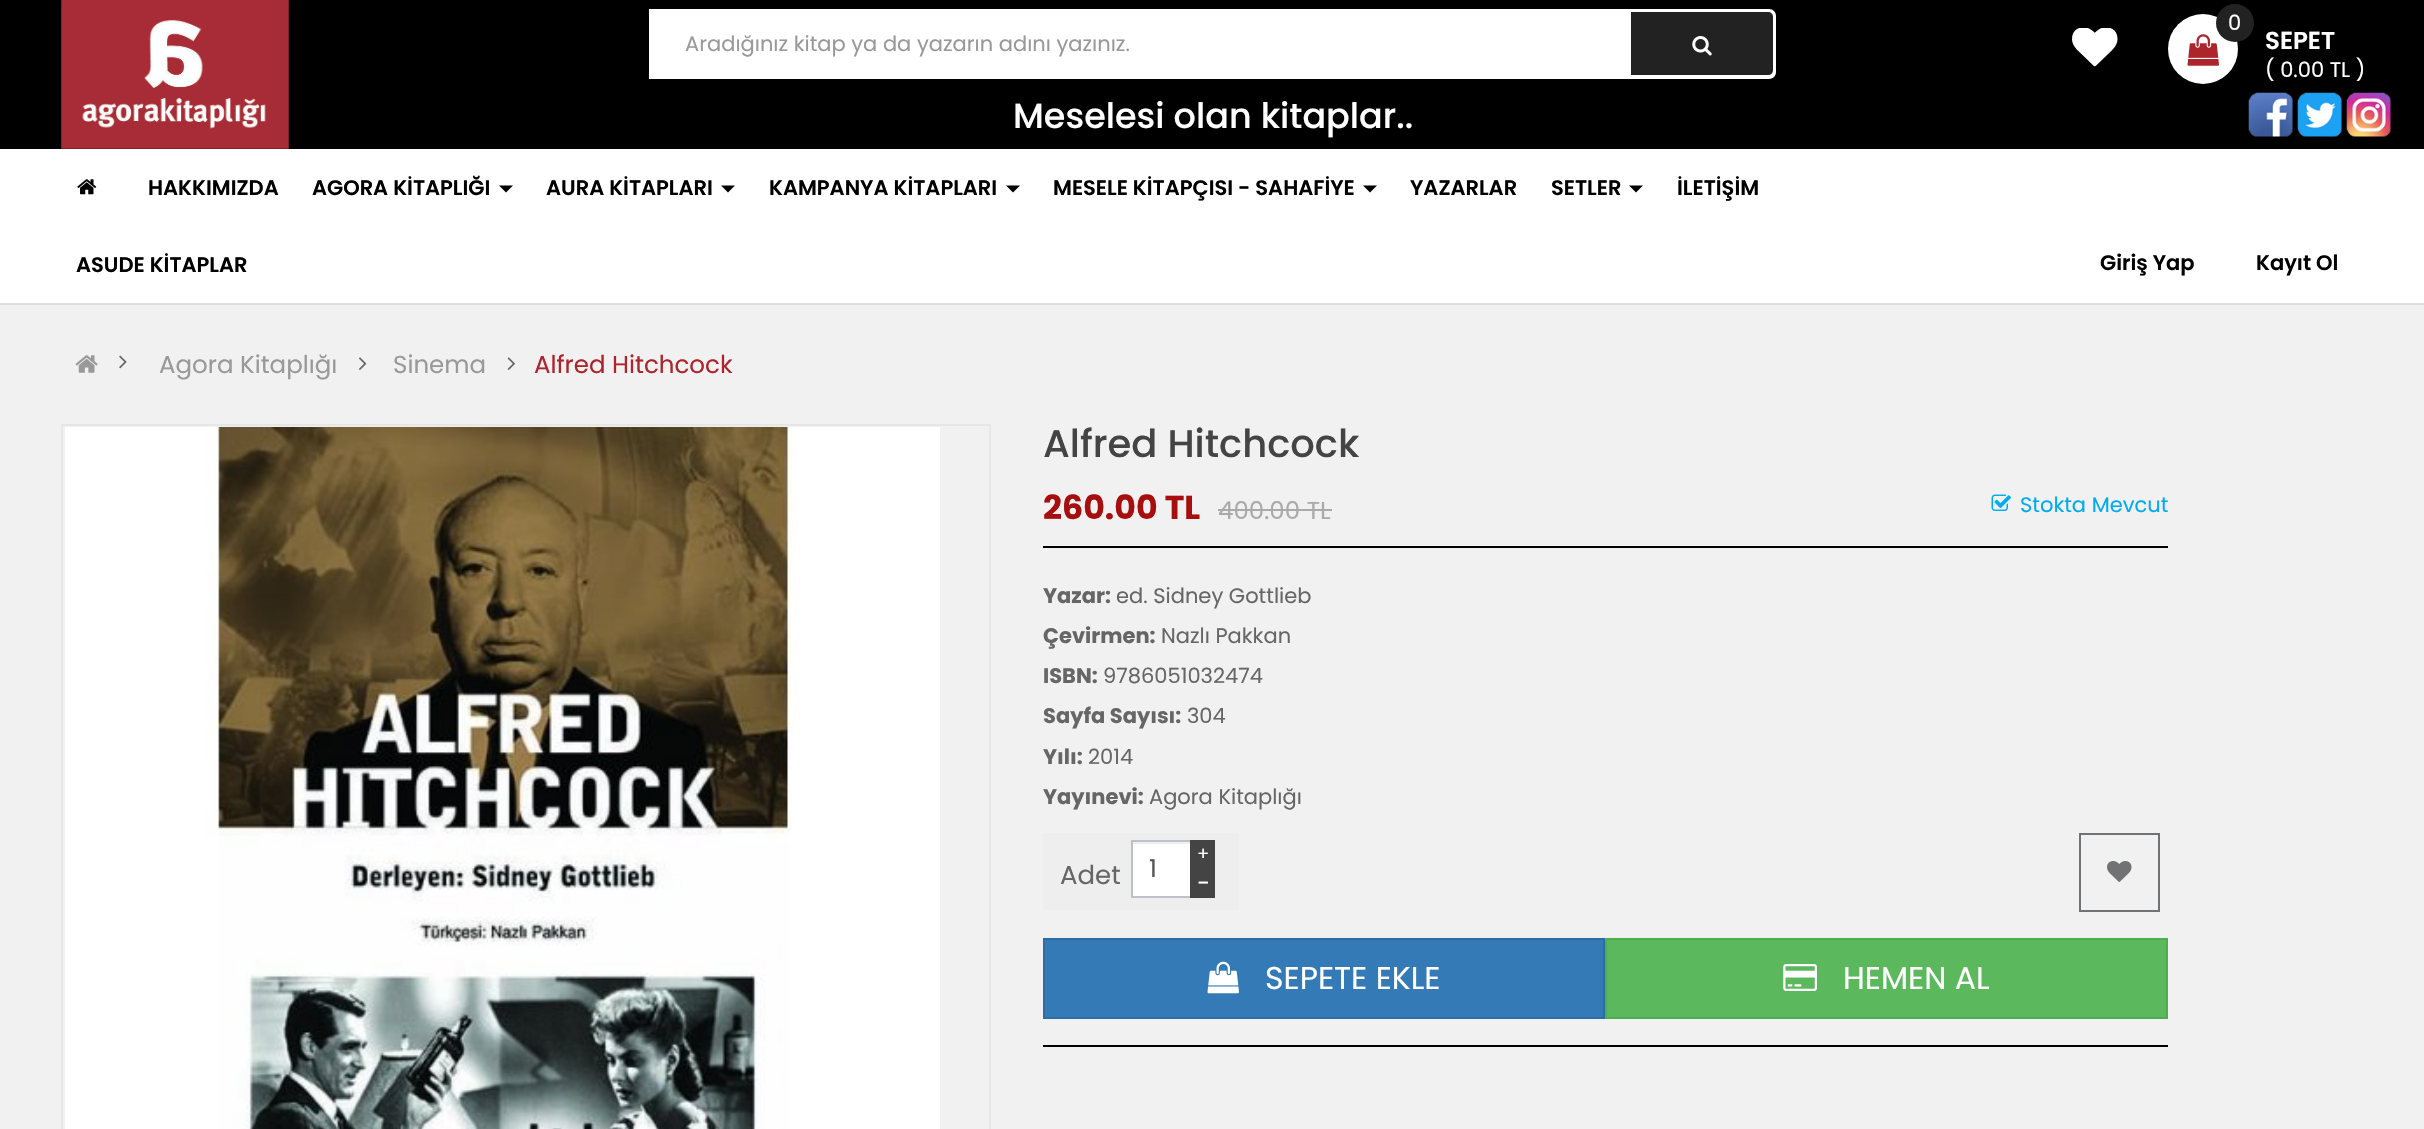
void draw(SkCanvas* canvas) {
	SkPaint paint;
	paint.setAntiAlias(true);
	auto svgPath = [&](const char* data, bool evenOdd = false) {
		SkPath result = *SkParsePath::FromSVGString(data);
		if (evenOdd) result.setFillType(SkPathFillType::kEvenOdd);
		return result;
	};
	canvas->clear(0xfff1f1f1);
	paint.setColor(0xff000000);
	canvas->drawRect(SkRect::MakeXYWH(0, 0, 2424, 149), paint);
	canvas->drawImageRect(SkImages::DeferredFromEncodedData(SkData::MakeFromFileName("img1.png")), SkRect::MakeXYWH(61, 0, 228, 149), SkSamplingOptions());
	paint.setColor(0xffffffff);
	canvas->drawPath(svgPath("M649 9H1769C1773 9 1776 12 1776 16V72C1776 76 1773 79 1769 79H649Z"), paint);
	SkFont f1(fontMgr->matchFamilyStyle("Poppins", SkFontStyle::Normal()), 21);
	f1.setSubpixel(true);
	paint.setColor(0xff999999);
	canvas->drawString("Aradığınız kitap ya da yazarın adını yazınız.", 685, 51, f1, paint);
	paint.setColor(0xff222222);
	canvas->drawPath(svgPath("M1631 12H1768C1771 12 1773 14 1773 17V70C1773 73 1771 75 1768 75H1631Z"), paint);
	canvas->drawImageRect(SkImages::DeferredFromEncodedData(SkData::MakeFromFileName("img2.png")), SkRect::MakeXYWH(1692, 36, 20, 20), SkSamplingOptions());
	SkFont f2(fontMgr->matchFamilyStyle("Poppins", SkFontStyle(500, SkFontStyle::kNormal_Width, SkFontStyle::kUpright_Slant)), 35);
	f2.setSubpixel(true);
	paint.setColor(0xffffffff);
	canvas->drawString("Meselesi olan kitaplar..", 1013, 128, f2, paint);
	canvas->drawImageRect(SkImages::DeferredFromEncodedData(SkData::MakeFromFileName("img3.png")), SkRect::MakeXYWH(2072, 28, 46, 39), SkSamplingOptions());
	canvas->drawCircle(2203, 49, 35, paint);
	canvas->drawImageRect(SkImages::DeferredFromEncodedData(SkData::MakeFromFileName("img4.png")), SkRect::MakeXYWH(2187, 34, 32, 32), SkSamplingOptions());
	paint.setColor(0xff222222);
	canvas->drawCircle(2235, 23, 19, paint);
	paint.setColor(0xffffffff);
	canvas->drawString("0", 2228, 30, f1, paint);
	canvas->drawString("( 0.00 TL )", 2265, 77, f1, paint);
	SkFont f3(fontMgr->matchFamilyStyle("Poppins", SkFontStyle(600, SkFontStyle::kNormal_Width, SkFontStyle::kUpright_Slant)), 24.5);
	f3.setSubpixel(true);
	canvas->drawString("SEPET", 2265, 49, f3, paint);
	canvas->drawImageRect(SkImages::DeferredFromEncodedData(SkData::MakeFromFileName("img5.png")), SkRect::MakeXYWH(2248, 92, 45, 45), SkSamplingOptions());
	canvas->drawImageRect(SkImages::DeferredFromEncodedData(SkData::MakeFromFileName("img6.png")), SkRect::MakeXYWH(2297, 92, 45, 45), SkSamplingOptions());
	canvas->drawImageRect(SkImages::DeferredFromEncodedData(SkData::MakeFromFileName("img7.png")), SkRect::MakeXYWH(2346, 92, 45, 45), SkSamplingOptions());
	canvas->drawRect(SkRect::MakeXYWH(0, 149, 2424, 154), paint);
	paint.setColor(0xffdedede);
	canvas->drawRect(SkRect::MakeXYWH(0, 303, 2424, 2), paint);
	canvas->drawImageRect(SkImages::DeferredFromEncodedData(SkData::MakeFromFileName("img8.png")), SkRect::MakeXYWH(77, 179, 20, 16), SkSamplingOptions());
	SkFont f4(fontMgr->matchFamilyStyle("Poppins", SkFontStyle(600, SkFontStyle::kNormal_Width, SkFontStyle::kUpright_Slant)), 21);
	f4.setSubpixel(true);
	paint.setColor(0xff000000);
	canvas->drawString("HAKKIMIZDA", 148, 195, f4, paint);
	canvas->drawString("AGORA KİTAPLIĞI", 312, 195, f4, paint);
	canvas->drawPath(svgPath("M499 185.5H513L506 192.5Z"), paint);
	canvas->drawString("AURA KİTAPLARI", 546, 195, f4, paint);
	canvas->drawPath(svgPath("M721 185.5H735L728 192.5Z"), paint);
	canvas->drawString("KAMPANYA KİTAPLARI", 769, 195, f4, paint);
	canvas->drawPath(svgPath("M1006 185.5H1020L1013 192.5Z"), paint);
	canvas->drawString("MESELE KİTAPÇISI - SAHAFİYE", 1053, 195, f4, paint);
	canvas->drawPath(svgPath("M1363 185.5H1377L1370 192.5Z"), paint);
	canvas->drawString("YAZARLAR", 1410, 195, f4, paint);
	canvas->drawString("SETLER", 1551, 195, f4, paint);
	canvas->drawPath(svgPath("M1629 185.5H1643L1636 192.5Z"), paint);
	canvas->drawString("İLETİŞİM", 1677, 195, f4, paint);
	canvas->drawString("ASUDE KİTAPLAR", 76, 272, f4, paint);
	canvas->drawString("Giriş Yap", 2100, 270, f4, paint);
	canvas->drawString("Kayıt Ol", 2256, 270, f4, paint);
	canvas->drawImageRect(SkImages::DeferredFromEncodedData(SkData::MakeFromFileName("img9.png")), SkRect::MakeXYWH(75, 355, 23, 18), SkSamplingOptions());
	canvas->drawImageRect(SkImages::DeferredFromEncodedData(SkData::MakeFromFileName("img10.png")), SkRect::MakeXYWH(119, 355, 8, 14), SkSamplingOptions());
	SkFont f5(fontMgr->matchFamilyStyle("Poppins", SkFontStyle::Normal()), 24.5);
	f5.setSubpixel(true);
	paint.setColor(0xff999999);
	canvas->drawString("Agora Kitaplığı", 159, 373, f5, paint);
	canvas->drawImageRect(SkImages::DeferredFromEncodedData(SkData::MakeFromFileName("img11.png")), SkRect::MakeXYWH(359, 357, 8, 13), SkSamplingOptions());
	canvas->drawString("Sinema", 393, 373, f5, paint);
	canvas->drawImageRect(SkImages::DeferredFromEncodedData(SkData::MakeFromFileName("img12.png")), SkRect::MakeXYWH(507, 357, 8, 13), SkSamplingOptions());
	paint.setColor(0xffac242c);
	canvas->drawString("Alfred Hitchcock", 534, 373, f5, paint);
	paint.setStroke(true);
	paint.setStrokeWidth(2);
	paint.setColor(0xffe6e6e6);
	canvas->drawRect(SkRect::MakeXYWH(62, 425, 928, 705), paint);
	paint.setStroke(false);
	paint.setColor(0xffffffff);
	canvas->drawRect(SkRect::MakeXYWH(65, 427, 875, 702), paint);
	canvas->drawImageRect(SkImages::DeferredFromEncodedData(SkData::MakeFromFileName("img13.png")), SkRect::MakeXYWH(205, 427, 588, 702), SkSamplingOptions());
	SkFont f6(fontMgr->matchFamilyStyle("Poppins", SkFontStyle(500, SkFontStyle::kNormal_Width, SkFontStyle::kUpright_Slant)), 38.5);
	f6.setSubpixel(true);
	paint.setColor(0xff444444);
	canvas->drawString("Alfred Hitchcock", 1043, 457, f6, paint);
	paint.setColor(0xff000000);
	canvas->drawRect(SkRect::MakeXYWH(1043, 546, 1125, 2), paint);
	SkFont f7(fontMgr->matchFamilyStyle("Poppins", SkFontStyle::Bold()), 33.25);
	f7.setSubpixel(true);
	paint.setColor(0xffa70e0e);
	canvas->drawString("260.00 TL", 1043, 519, f7, paint);
	paint.setColor(0xffaaaaaa);
	canvas->drawString("400.00 TL", 1218, 519, f5, paint);
	canvas->drawRect(SkRect::MakeXYWH(1218, 509, 114, 2), paint);
	canvas->drawImageRect(SkImages::DeferredFromEncodedData(SkData::MakeFromFileName("img14.png")), SkRect::MakeXYWH(1991, 494, 20, 17), SkSamplingOptions());
	paint.setColor(0xff00abf0);
	canvas->drawString("Stokta Mevcut", 2020, 512, f1, paint);
	SkFont f8(fontMgr->matchFamilyStyle("Poppins", SkFontStyle::Bold()), 21);
	f8.setSubpixel(true);
	paint.setColor(0xff666666);
	canvas->drawString("Yazar:", 1043, 603, f8, paint);
	canvas->drawString("ed. Sidney Gottlieb", 1116, 603, f1, paint);
	canvas->drawString("Çevirmen:", 1043, 643, f8, paint);
	canvas->drawString("Nazlı Pakkan", 1161, 643, f1, paint);
	canvas->drawString("ISBN:", 1043, 683, f8, paint);
	canvas->drawString("9786051032474", 1103, 683, f1, paint);
	canvas->drawString("Sayfa Sayısı:", 1043, 723, f8, paint);
	canvas->drawString("304", 1187, 723, f1, paint);
	canvas->drawString("Yılı:", 1043, 764, f8, paint);
	canvas->drawString("2014", 1088, 764, f1, paint);
	canvas->drawString("Yayınevi:", 1043, 804, f8, paint);
	canvas->drawString("Agora Kitaplığı", 1149, 804, f1, paint);
	paint.setColor(0xff000000);
	canvas->drawRect(SkRect::MakeXYWH(1043, 1045, 1125, 2), paint);
	paint.setColor(0xffeeeeee);
	canvas->drawRect(SkRect::MakeXYWH(1043, 833, 196, 77), paint);
	paint.setColor(0xffffffff);
	canvas->drawRect(SkRect::MakeXYWH(1133, 844, 57, 52), paint);
	paint.setStroke(true);
	paint.setColor(0xffbdc2c9);
	canvas->drawRect(SkRect::MakeXYWH(1132, 841, 59, 56), paint);
	paint.setStroke(false);
	paint.setColor(0xff444444);
	canvas->drawRect(SkRect::MakeXYWH(1190, 840, 25, 58), paint);
	SkFont f9(fontMgr->matchFamilyStyle("Poppins", SkFontStyle::Normal()), 18);
	f9.setSubpixel(true);
	paint.setColor(0xffffffff);
	canvas->drawString("+", 1197, 860, f9, paint);
	SkFont f10(fontMgr->matchFamilyStyle("Poppins", SkFontStyle::Normal()), 26);
	f10.setSubpixel(true);
	paint.setColor(0xff666666);
	canvas->drawString("Adet", 1060, 884, f10, paint);
	paint.setColor(0xff555555);
	canvas->drawString("1", 1149, 877, f5, paint);
	SkFont f11(fontMgr->matchFamilyStyle("Poppins", SkFontStyle::Normal()), 23);
	f11.setSubpixel(true);
	paint.setColor(0xffffffff);
	canvas->drawString("−", 1197, 891, f11, paint);
	paint.setStroke(true);
	paint.setColor(0xff707273);
	canvas->drawRect(SkRect::MakeXYWH(2080, 834, 79, 77), paint);
	canvas->drawImageRect(SkImages::DeferredFromEncodedData(SkData::MakeFromFileName("img15.png")), SkRect::MakeXYWH(2107, 861, 25, 21), SkSamplingOptions());
	paint.setStroke(false);
	paint.setColor(0xff337ab7);
	canvas->drawRect(SkRect::MakeXYWH(1044, 939, 560, 79), paint);
	paint.setStroke(true);
	paint.setColor(0xff2e6da4);
	canvas->drawRect(SkRect::MakeXYWH(1044, 939, 560, 79), paint);
	canvas->drawImageRect(SkImages::DeferredFromEncodedData(SkData::MakeFromFileName("img16.png")), SkRect::MakeXYWH(1207, 961, 32, 33), SkSamplingOptions());
	SkFont f12(fontMgr->matchFamilyStyle("Poppins", SkFontStyle::Normal()), 31.5);
	f12.setSubpixel(true);
	paint.setStroke(false);
	paint.setColor(0xffffffff);
	canvas->drawString("SEPETE EKLE", 1265, 989, f12, paint);
	paint.setColor(0xff5cb85c);
	canvas->drawRect(SkRect::MakeXYWH(1606, 939, 561, 79), paint);
	paint.setStroke(true);
	paint.setColor(0xff4cae4c);
	canvas->drawRect(SkRect::MakeXYWH(1606, 939, 561, 79), paint);
	canvas->drawImageRect(SkImages::DeferredFromEncodedData(SkData::MakeFromFileName("img17.png")), SkRect::MakeXYWH(1783, 964, 34, 27), SkSamplingOptions());
	paint.setStroke(false);
	paint.setColor(0xffffffff);
	canvas->drawString("HEMEN AL", 1843, 989, f12, paint);
}
